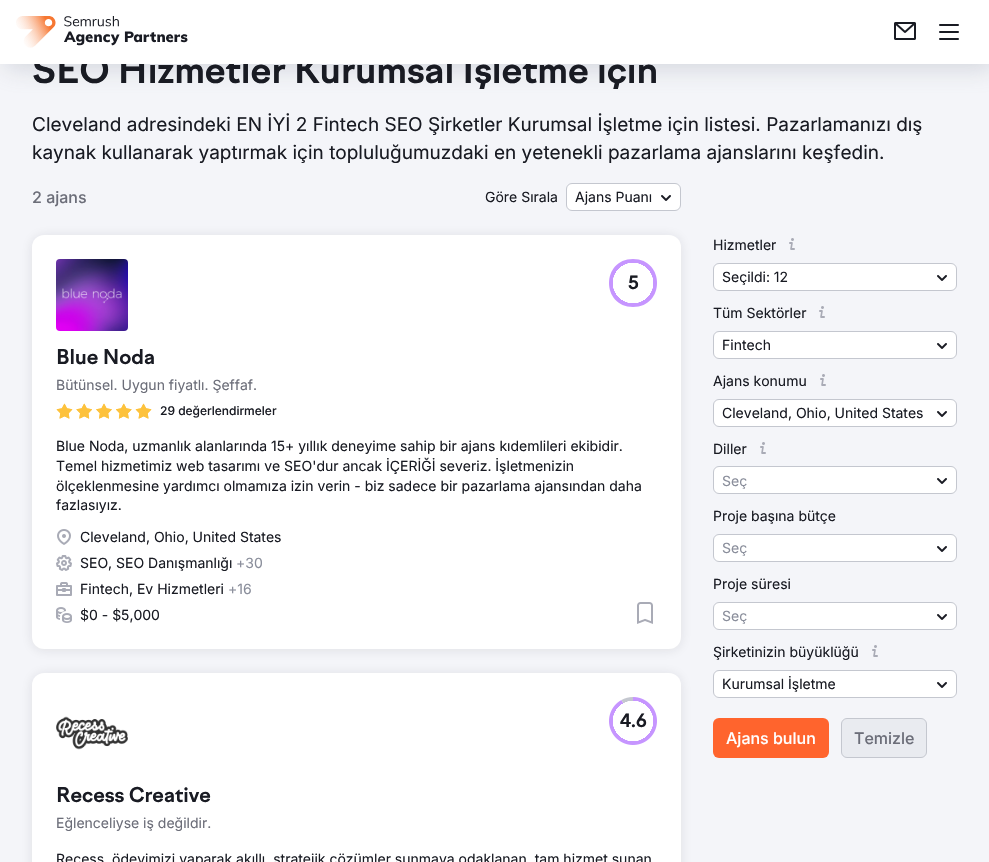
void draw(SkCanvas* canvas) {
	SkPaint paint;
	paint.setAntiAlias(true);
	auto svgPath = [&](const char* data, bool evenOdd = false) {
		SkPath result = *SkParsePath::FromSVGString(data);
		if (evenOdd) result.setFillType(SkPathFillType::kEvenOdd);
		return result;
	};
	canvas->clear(0xfff4f5f9);
	paint.setColor(0x4d898d9a);
	paint.setMaskFilter(SkMaskFilter::MakeBlur(kNormal_SkBlurStyle, 12.5));
	canvas->drawRect(SkRect::MakeXYWH(5, 5, 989, 64), paint);
	paint.setMaskFilter(nullptr);
	SkFont f1(fontMgr->matchFamilyStyle("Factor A", SkFontStyle::Bold()), 36);
	f1.setSubpixel(true);
	paint.setColor(0xff191b23);
	canvas->drawString("SEO Hizmetler Kurumsal İşletme için", 32, 83, f1, paint);
	paint.setColor(0xffffffff);
	canvas->drawRect(SkRect::MakeXYWH(0, 0, 989, 64), paint);
	canvas->drawImageRect(SkImages::DeferredFromEncodedData(SkData::MakeFromFileName("img1.png")), SkRect::MakeXYWH(16, 16, 172, 32), SkSamplingOptions());
	canvas->drawImageRect(SkImages::DeferredFromEncodedData(SkData::MakeFromFileName("img2.png")), SkRect::MakeXYWH(894, 22, 22, 18), SkSamplingOptions());
	canvas->drawImageRect(SkImages::DeferredFromEncodedData(SkData::MakeFromFileName("img3.png")), SkRect::MakeXYWH(939, 24, 20, 16), SkSamplingOptions());
	SkFont f2(fontMgr->matchFamilyStyle("Inter", SkFontStyle::Normal()), 19);
	f2.setSubpixel(true);
	paint.setColor(0xff191b23);
	canvas->drawString("Cleveland adresindeki EN İYİ 2 Fintech SEO Şirketler Kurumsal İşletme için listesi. Pazarlamanızı dış", 32, 131, f2, paint);
	canvas->drawString("kaynak kullanarak yaptırmak için topluluğumuzdaki en yetenekli pazarlama ajanslarını keşfedin.", 32, 159, f2, paint);
	SkFont f3(fontMgr->matchFamilyStyle("Inter", SkFontStyle(500, SkFontStyle::kNormal_Width, SkFontStyle::kUpright_Slant)), 16);
	f3.setSubpixel(true);
	paint.setColor(0xff6c6e79);
	canvas->drawString("2 ajans", 32, 203, f3, paint);
	SkFont f4(fontMgr->matchFamilyStyle("Inter", SkFontStyle::Normal()), 14);
	f4.setSubpixel(true);
	paint.setColor(0xff191b23);
	canvas->drawString("Göre Sırala", 485, 202, f4, paint);
	paint.setColor(0xffffffff);
	canvas->drawRoundRect(SkRect::MakeXYWH(566.5, 183.5, 114, 27), 5.5, 5.5, paint);
	paint.setStroke(true);
	paint.setStrokeWidth(1);
	paint.setColor(0xffc4c7cf);
	canvas->drawRoundRect(SkRect::MakeXYWH(566.5, 183.5, 114, 27), 5.5, 5.5, paint);
	paint.setStroke(false);
	paint.setColor(0xff191b23);
	canvas->drawString("Ajans Puanı", 575, 202, f4, paint);
	canvas->drawImageRect(SkImages::DeferredFromEncodedData(SkData::MakeFromFileName("img4.png")), SkRect::MakeXYWH(661, 195, 10, 6), SkSamplingOptions());
	paint.setColor(0x1a191b23);
	paint.setMaskFilter(SkMaskFilter::MakeBlur(kNormal_SkBlurStyle, 6));
	canvas->drawRoundRect(SkRect::MakeXYWH(32, 236, 649, 414), 12, 12, paint);
	paint.setMaskFilter(nullptr);
	paint.setColor(0xffffffff);
	canvas->drawRoundRect(SkRect::MakeXYWH(32, 235, 649, 414), 12, 12, paint);
	canvas->drawImageRect(SkImages::DeferredFromEncodedData(SkData::MakeFromFileName("img5.png")), SkRect::MakeXYWH(56, 259, 72, 72), SkSamplingOptions());
	paint.setColor(0xffc695ff);
	canvas->drawPath(svgPath("M633 283V259C665 259 665 307 633 307C601 307 601 259 633 259Z"), paint);
	{
		const SkColor colors[] = {0xffffffff, 0x00ffffff, 0x00000000};
		const float stops[] = {0.84, 0.85, 1};
		paint.setShader(SkGradientShader::MakeRadial({633, 283}, 24, colors, stops, 3, SkTileMode::kClamp));
		paint.setAlpha(255);
	}
	canvas->drawRect(SkRect::MakeXYWH(613, 263, 40, 40), paint);
	SkFont f5(fontMgr->matchFamilyStyle("Factor A", SkFontStyle::Bold()), 18);
	f5.setSubpixel(true);
	paint.setShader(nullptr);
	paint.setColor(0xff191b23);
	canvas->drawString("5", 628, 289, f5, paint);
	SkFont f6(fontMgr->matchFamilyStyle("Factor A", SkFontStyle::Bold()), 20);
	f6.setSubpixel(true);
	canvas->drawString("Blue Noda", 56, 364, f6, paint);
	paint.setColor(0xff6c6e79);
	canvas->drawString("Bütünsel. Uygun fiyatlı. Şeffaf.", 56, 390, f4, paint);
	canvas->drawImageRect(SkImages::DeferredFromEncodedData(SkData::MakeFromFileName("img6.png")), SkRect::MakeXYWH(56, 403, 96, 16), SkSamplingOptions());
	SkFont f7(fontMgr->matchFamilyStyle("Inter", SkFontStyle(500, SkFontStyle::kNormal_Width, SkFontStyle::kUpright_Slant)), 12);
	f7.setSubpixel(true);
	paint.setColor(0xff191b23);
	canvas->drawString("29 değerlendirmeler", 160, 415, f7, paint);
	canvas->drawString("Blue Noda, uzmanlık alanlarında 15+ yıllık deneyime sahip bir ajans kıdemlileri ekibidir.", 56, 451, f4, paint);
	canvas->drawString("Temel hizmetimiz web tasarımı ve SEO'dur ancak İÇERİĞİ severiz. İşletmenizin", 56, 471, f4, paint);
	canvas->drawString("ölçeklenmesine yardımcı olmamıza izin verin - biz sadece bir pazarlama ajansından daha", 56, 491, f4, paint);
	canvas->drawString("fazlasıyız.", 56, 510, f4, paint);
	canvas->drawImageRect(SkImages::DeferredFromEncodedData(SkData::MakeFromFileName("img7.png")), SkRect::MakeXYWH(57, 529, 14, 16), SkSamplingOptions());
	canvas->drawString("Cleveland, Ohio, United States", 80, 542, f4, paint);
	canvas->drawImageRect(SkImages::DeferredFromEncodedData(SkData::MakeFromFileName("img8.png")), SkRect::MakeXYWH(56, 555, 16, 16), SkSamplingOptions());
	canvas->drawString("SEO, SEO Danışmanlığı", 80, 568, f4, paint);
	paint.setColor(0xff8a8e9b);
	canvas->drawString("+30", 236, 568, f4, paint);
	canvas->drawImageRect(SkImages::DeferredFromEncodedData(SkData::MakeFromFileName("img9.png")), SkRect::MakeXYWH(56, 582, 16, 14), SkSamplingOptions());
	paint.setColor(0xff191b23);
	canvas->drawString("Fintech, Ev Hizmetleri", 80, 594, f4, paint);
	paint.setColor(0xff8a8e9b);
	canvas->drawString("+16", 228, 594, f4, paint);
	canvas->drawImageRect(SkImages::DeferredFromEncodedData(SkData::MakeFromFileName("img10.png")), SkRect::MakeXYWH(56, 607, 16, 16), SkSamplingOptions());
	paint.setColor(0xff191b23);
	canvas->drawString("$0 - $5,000", 80, 620, f4, paint);
	canvas->drawImageRect(SkImages::DeferredFromEncodedData(SkData::MakeFromFileName("img11.png")), SkRect::MakeXYWH(637, 602, 16, 22), SkSamplingOptions());
	paint.setColor(0x1a191b23);
	paint.setMaskFilter(SkMaskFilter::MakeBlur(kNormal_SkBlurStyle, 6));
	canvas->drawRoundRect(SkRect::MakeXYWH(32, 674, 649, 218), 12, 12, paint);
	paint.setMaskFilter(nullptr);
	paint.setColor(0xffffffff);
	canvas->drawRoundRect(SkRect::MakeXYWH(32, 673, 649, 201), 12, 12, paint);
	canvas->drawImageRect(SkImages::DeferredFromEncodedData(SkData::MakeFromFileName("img12.png")), SkRect::MakeXYWH(56, 716, 72, 34), SkSamplingOptions());
	canvas->drawImageRect(SkImages::DeferredFromEncodedData(SkData::MakeFromFileName("img13.png")), SkRect::MakeXYWH(609, 697, 48, 48), SkSamplingOptions());
	{
		const SkColor colors[] = {0xffffffff, 0x00ffffff, 0x00000000};
		const float stops[] = {0.84, 0.85, 1};
		paint.setShader(SkGradientShader::MakeRadial({633, 721}, 24, colors, stops, 3, SkTileMode::kClamp));
		paint.setAlpha(255);
	}
	canvas->drawRect(SkRect::MakeXYWH(613, 701, 40, 40), paint);
	paint.setShader(nullptr);
	paint.setColor(0xff191b23);
	canvas->drawString("4.6", 620, 727, f5, paint);
	canvas->drawString("Recess Creative", 56, 802, f6, paint);
	paint.setColor(0xff6c6e79);
	canvas->drawString("Eğlenceliyse iş değildir.", 56, 828, f4, paint);
	paint.setColor(0xff191b23);
	canvas->drawString("Recess, ödevimizi yaparak akıllı, stratejik çözümler sunmaya odaklanan, tam hizmet sunan", 56, 864, f4, paint);
	canvas->drawString("Hizmetler", 713, 250, f4, paint);
	canvas->drawImageRect(SkImages::DeferredFromEncodedData(SkData::MakeFromFileName("img14.png")), SkRect::MakeXYWH(789, 238, 6, 12), SkSamplingOptions());
	paint.setColor(0xffffffff);
	canvas->drawRoundRect(SkRect::MakeXYWH(713.5, 263.5, 243, 27), 5.5, 5.5, paint);
	paint.setStroke(true);
	paint.setColor(0xffc4c7cf);
	canvas->drawRoundRect(SkRect::MakeXYWH(713.5, 263.5, 243, 27), 5.5, 5.5, paint);
	paint.setStroke(false);
	paint.setColor(0xff191b23);
	canvas->drawString("Seçildi: 12", 722, 282, f4, paint);
	canvas->drawImageRect(SkImages::DeferredFromEncodedData(SkData::MakeFromFileName("img4.png")), SkRect::MakeXYWH(937, 275, 10, 6), SkSamplingOptions());
	canvas->drawString("Tüm Sektörler", 713, 318, f4, paint);
	canvas->drawImageRect(SkImages::DeferredFromEncodedData(SkData::MakeFromFileName("img14.png")), SkRect::MakeXYWH(819, 306, 6, 12), SkSamplingOptions());
	paint.setColor(0xffffffff);
	canvas->drawRoundRect(SkRect::MakeXYWH(713.5, 331.5, 243, 27), 5.5, 5.5, paint);
	paint.setStroke(true);
	paint.setColor(0xffc4c7cf);
	canvas->drawRoundRect(SkRect::MakeXYWH(713.5, 331.5, 243, 27), 5.5, 5.5, paint);
	paint.setStroke(false);
	paint.setColor(0xff191b23);
	canvas->drawString("Fintech", 722, 350, f4, paint);
	canvas->drawImageRect(SkImages::DeferredFromEncodedData(SkData::MakeFromFileName("img4.png")), SkRect::MakeXYWH(937, 343, 10, 6), SkSamplingOptions());
	canvas->drawString("Ajans konumu", 713, 386, f4, paint);
	canvas->drawImageRect(SkImages::DeferredFromEncodedData(SkData::MakeFromFileName("img14.png")), SkRect::MakeXYWH(820, 374, 6, 12), SkSamplingOptions());
	paint.setColor(0xffffffff);
	canvas->drawRoundRect(SkRect::MakeXYWH(713.5, 399.5, 243, 27), 5.5, 5.5, paint);
	paint.setStroke(true);
	paint.setColor(0xffc4c7cf);
	canvas->drawRoundRect(SkRect::MakeXYWH(713.5, 399.5, 243, 27), 5.5, 5.5, paint);
	paint.setStroke(false);
	paint.setColor(0xff191b23);
	canvas->drawString("Cleveland, Ohio, United States", 722, 418, f4, paint);
	canvas->drawImageRect(SkImages::DeferredFromEncodedData(SkData::MakeFromFileName("img4.png")), SkRect::MakeXYWH(937, 411, 10, 6), SkSamplingOptions());
	canvas->drawString("Diller", 713, 454, f4, paint);
	canvas->drawImageRect(SkImages::DeferredFromEncodedData(SkData::MakeFromFileName("img14.png")), SkRect::MakeXYWH(760, 442, 6, 12), SkSamplingOptions());
	paint.setColor(0xffffffff);
	canvas->drawRoundRect(SkRect::MakeXYWH(713.5, 466.5, 243, 27), 5.5, 5.5, paint);
	paint.setStroke(true);
	paint.setColor(0xffc4c7cf);
	canvas->drawRoundRect(SkRect::MakeXYWH(713.5, 466.5, 243, 27), 5.5, 5.5, paint);
	paint.setStroke(false);
	paint.setColor(0xff8a8e9b);
	canvas->drawString("Seç", 722, 486, f4, paint);
	canvas->drawImageRect(SkImages::DeferredFromEncodedData(SkData::MakeFromFileName("img4.png")), SkRect::MakeXYWH(937, 478, 10, 6), SkSamplingOptions());
	paint.setColor(0xff191b23);
	canvas->drawString("Proje başına bütçe", 713, 521, f4, paint);
	paint.setColor(0xffffffff);
	canvas->drawRoundRect(SkRect::MakeXYWH(713.5, 534.5, 243, 27), 5.5, 5.5, paint);
	paint.setStroke(true);
	paint.setColor(0xffc4c7cf);
	canvas->drawRoundRect(SkRect::MakeXYWH(713.5, 534.5, 243, 27), 5.5, 5.5, paint);
	paint.setStroke(false);
	paint.setColor(0xff8a8e9b);
	canvas->drawString("Seç", 722, 553, f4, paint);
	canvas->drawImageRect(SkImages::DeferredFromEncodedData(SkData::MakeFromFileName("img4.png")), SkRect::MakeXYWH(937, 546, 10, 6), SkSamplingOptions());
	paint.setColor(0xff191b23);
	canvas->drawString("Proje süresi", 713, 589, f4, paint);
	paint.setColor(0xffffffff);
	canvas->drawRoundRect(SkRect::MakeXYWH(713.5, 602.5, 243, 27), 5.5, 5.5, paint);
	paint.setStroke(true);
	paint.setColor(0xffc4c7cf);
	canvas->drawRoundRect(SkRect::MakeXYWH(713.5, 602.5, 243, 27), 5.5, 5.5, paint);
	paint.setStroke(false);
	paint.setColor(0xff8a8e9b);
	canvas->drawString("Seç", 722, 621, f4, paint);
	canvas->drawImageRect(SkImages::DeferredFromEncodedData(SkData::MakeFromFileName("img4.png")), SkRect::MakeXYWH(937, 614, 10, 6), SkSamplingOptions());
	paint.setColor(0xff191b23);
	canvas->drawString("Şirketinizin büyüklüğü", 713, 657, f4, paint);
	canvas->drawImageRect(SkImages::DeferredFromEncodedData(SkData::MakeFromFileName("img14.png")), SkRect::MakeXYWH(872, 645, 6, 12), SkSamplingOptions());
	paint.setColor(0xffffffff);
	canvas->drawRoundRect(SkRect::MakeXYWH(713.5, 670.5, 243, 27), 5.5, 5.5, paint);
	paint.setStroke(true);
	paint.setColor(0xffc4c7cf);
	canvas->drawRoundRect(SkRect::MakeXYWH(713.5, 670.5, 243, 27), 5.5, 5.5, paint);
	paint.setStroke(false);
	paint.setColor(0xff191b23);
	canvas->drawString("Kurumsal İşletme", 722, 689, f4, paint);
	canvas->drawImageRect(SkImages::DeferredFromEncodedData(SkData::MakeFromFileName("img4.png")), SkRect::MakeXYWH(937, 682, 10, 6), SkSamplingOptions());
	paint.setColor(0xffff642d);
	canvas->drawRoundRect(SkRect::MakeXYWH(713, 718, 116, 40), 6, 6, paint);
	paint.setColor(0xffffffff);
	canvas->drawString("Ajans bulun", 726, 744, f3, paint);
	paint.setColor(0xffe9ebf0);
	canvas->drawRoundRect(SkRect::MakeXYWH(841.5, 718.5, 85, 39), 5.5, 5.5, paint);
	paint.setStroke(true);
	paint.setColor(0xffc4c7cf);
	canvas->drawRoundRect(SkRect::MakeXYWH(841.5, 718.5, 85, 39), 5.5, 5.5, paint);
	paint.setStroke(false);
	paint.setColor(0xff6c6e79);
	canvas->drawString("Temizle", 854, 744, f3, paint);
}
